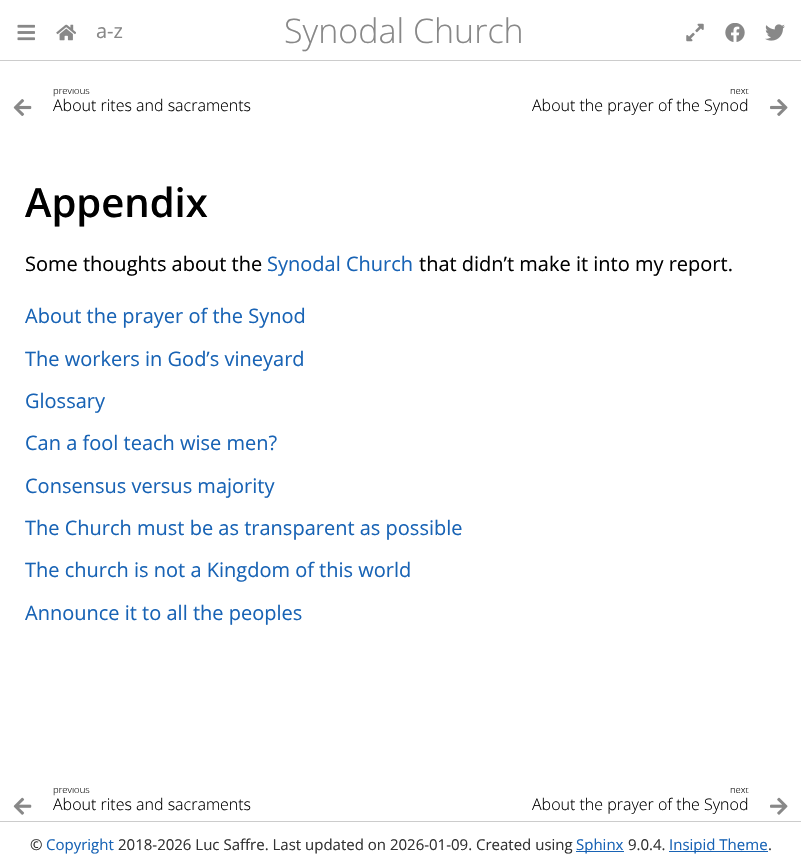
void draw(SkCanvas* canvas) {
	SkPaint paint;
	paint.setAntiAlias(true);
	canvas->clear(0xffffffff);
	paint.setColor(0xffcccccc);
	canvas->drawRect(SkRect::MakeXYWH(0, 60, 801, 1), paint);
	canvas->drawImageRect(SkImages::DeferredFromEncodedData(SkData::MakeFromFileName("img1.png")), SkRect::MakeXYWH(17, 24, 18, 17), SkSamplingOptions());
	canvas->drawImageRect(SkImages::DeferredFromEncodedData(SkData::MakeFromFileName("img2.png")), SkRect::MakeXYWH(56, 24, 20, 17), SkSamplingOptions());
	SkFont f1(fontMgr->matchFamilyStyle("Open Sans", SkFontStyle::Normal()), 20);
	f1.setSubpixel(true);
	paint.setColor(0xff888888);
	canvas->drawString("a-z", 96, 38, f1, paint);
	SkFont f2(fontMgr->matchFamilyStyle("Open Sans", SkFontStyle(300, SkFontStyle::kNormal_Width, SkFontStyle::kUpright_Slant)), 34);
	f2.setSubpixel(true);
	canvas->drawString("Synodal Church", 284, 43, f2, paint);
	canvas->drawImageRect(SkImages::DeferredFromEncodedData(SkData::MakeFromFileName("img3.png")), SkRect::MakeXYWH(686, 23, 18, 19), SkSamplingOptions());
	canvas->drawImageRect(SkImages::DeferredFromEncodedData(SkData::MakeFromFileName("img4.png")), SkRect::MakeXYWH(725, 23, 20, 19), SkSamplingOptions());
	canvas->drawImageRect(SkImages::DeferredFromEncodedData(SkData::MakeFromFileName("img5.png")), SkRect::MakeXYWH(765, 24, 20, 17), SkSamplingOptions());
	canvas->drawImageRect(SkImages::DeferredFromEncodedData(SkData::MakeFromFileName("img6.png")), SkRect::MakeXYWH(13, 99, 19, 17), SkSamplingOptions());
	canvas->save();
	canvas->clipRect(SkRect::MakeXYWH(53, 89, 348, 34));
	SkFont f3(fontMgr->matchFamilyStyle("Open Sans", SkFontStyle(300, SkFontStyle::kNormal_Width, SkFontStyle::kUpright_Slant)), 9.5);
	f3.setSubpixel(true);
	paint.setColor(0xff000000);
	canvas->drawString("previous", 53, 94, f3, paint);
	canvas->restore();
	SkFont f4(fontMgr->matchFamilyStyle("Open Sans", SkFontStyle(300, SkFontStyle::kNormal_Width, SkFontStyle::kUpright_Slant)), 16);
	f4.setSubpixel(true);
	canvas->drawString("About rites and sacraments", 53, 111, f4, paint);
	canvas->save();
	canvas->clipRect(SkRect::MakeXYWH(401, 89, 348, 34));
	canvas->drawString("next", 730, 94, f3, paint);
	canvas->restore();
	canvas->drawString("About the prayer of the Synod", 532, 111, f4, paint);
	canvas->drawImageRect(SkImages::DeferredFromEncodedData(SkData::MakeFromFileName("img7.png")), SkRect::MakeXYWH(770, 99, 18, 17), SkSamplingOptions());
	SkFont f5(fontMgr->matchFamilyStyle("Open Sans", SkFontStyle(600, SkFontStyle::kNormal_Width, SkFontStyle::kUpright_Slant)), 40);
	f5.setSubpixel(true);
	canvas->drawString("Appendix", 25, 217, f5, paint);
	canvas->drawString("Some thoughts about the", 25, 271, f1, paint);
	paint.setColor(0xff1863b5);
	canvas->drawString("Synodal Church", 267, 271, f1, paint);
	paint.setColor(0xff000000);
	canvas->drawString("that didn’t make it into my report.", 419, 271, f1, paint);
	paint.setColor(0xff1863b5);
	canvas->drawString("About the prayer of the Synod", 25, 323, f1, paint);
	canvas->drawString("The workers in God’s vineyard", 25, 366, f1, paint);
	canvas->drawString("Glossary", 25, 408, f1, paint);
	canvas->drawString("Can a fool teach wise men?", 25, 450, f1, paint);
	canvas->drawString("Consensus versus majority", 25, 493, f1, paint);
	canvas->drawString("The Church must be as transparent as possible", 25, 535, f1, paint);
	canvas->drawString("The church is not a Kingdom of this world", 25, 577, f1, paint);
	canvas->drawString("Announce it to all the peoples", 25, 620, f1, paint);
	canvas->drawImageRect(SkImages::DeferredFromEncodedData(SkData::MakeFromFileName("img8.png")), SkRect::MakeXYWH(13, 797, 19, 18), SkSamplingOptions());
	canvas->save();
	canvas->clipRect(SkRect::MakeXYWH(53, 788, 348, 33));
	paint.setColor(0xff000000);
	canvas->drawString("previous", 53, 793, f3, paint);
	canvas->restore();
	canvas->drawString("About rites and sacraments", 53, 810, f4, paint);
	canvas->save();
	canvas->clipRect(SkRect::MakeXYWH(401, 788, 348, 33));
	canvas->drawString("next", 730, 793, f3, paint);
	canvas->restore();
	canvas->drawString("About the prayer of the Synod", 532, 810, f4, paint);
	canvas->drawImageRect(SkImages::DeferredFromEncodedData(SkData::MakeFromFileName("img9.png")), SkRect::MakeXYWH(770, 797, 18, 18), SkSamplingOptions());
	paint.setColor(0xffcccccc);
	canvas->drawRect(SkRect::MakeXYWH(0, 821, 801, 1), paint);
	SkFont f6(fontMgr->matchFamilyStyle("Open Sans", SkFontStyle::Normal()), 15);
	f6.setSubpixel(true);
	paint.setColor(0xff333333);
	canvas->drawString("©", 30, 850, f6, paint);
	paint.setColor(0xff1863b5);
	canvas->drawString("Copyright", 46, 850, f6, paint);
	paint.setColor(0xff333333);
	canvas->drawString("2018-2026 Luc Saffre. Last updated on 2026-01-09. Created using", 118, 850, f6, paint);
	paint.setColor(0xff1863b5);
	canvas->drawRect(SkRect::MakeXYWH(576, 851, 48, 1), paint);
	canvas->drawString("Sphinx", 576, 850, f6, paint);
	paint.setColor(0xff333333);
	canvas->drawString("9.0.4.", 628, 850, f6, paint);
	paint.setColor(0xff1863b5);
	canvas->drawRect(SkRect::MakeXYWH(669, 851, 99, 1), paint);
	canvas->drawString("Insipid Theme", 669, 850, f6, paint);
	paint.setColor(0xff333333);
	canvas->drawString(".", 768, 850, f6, paint);
}
